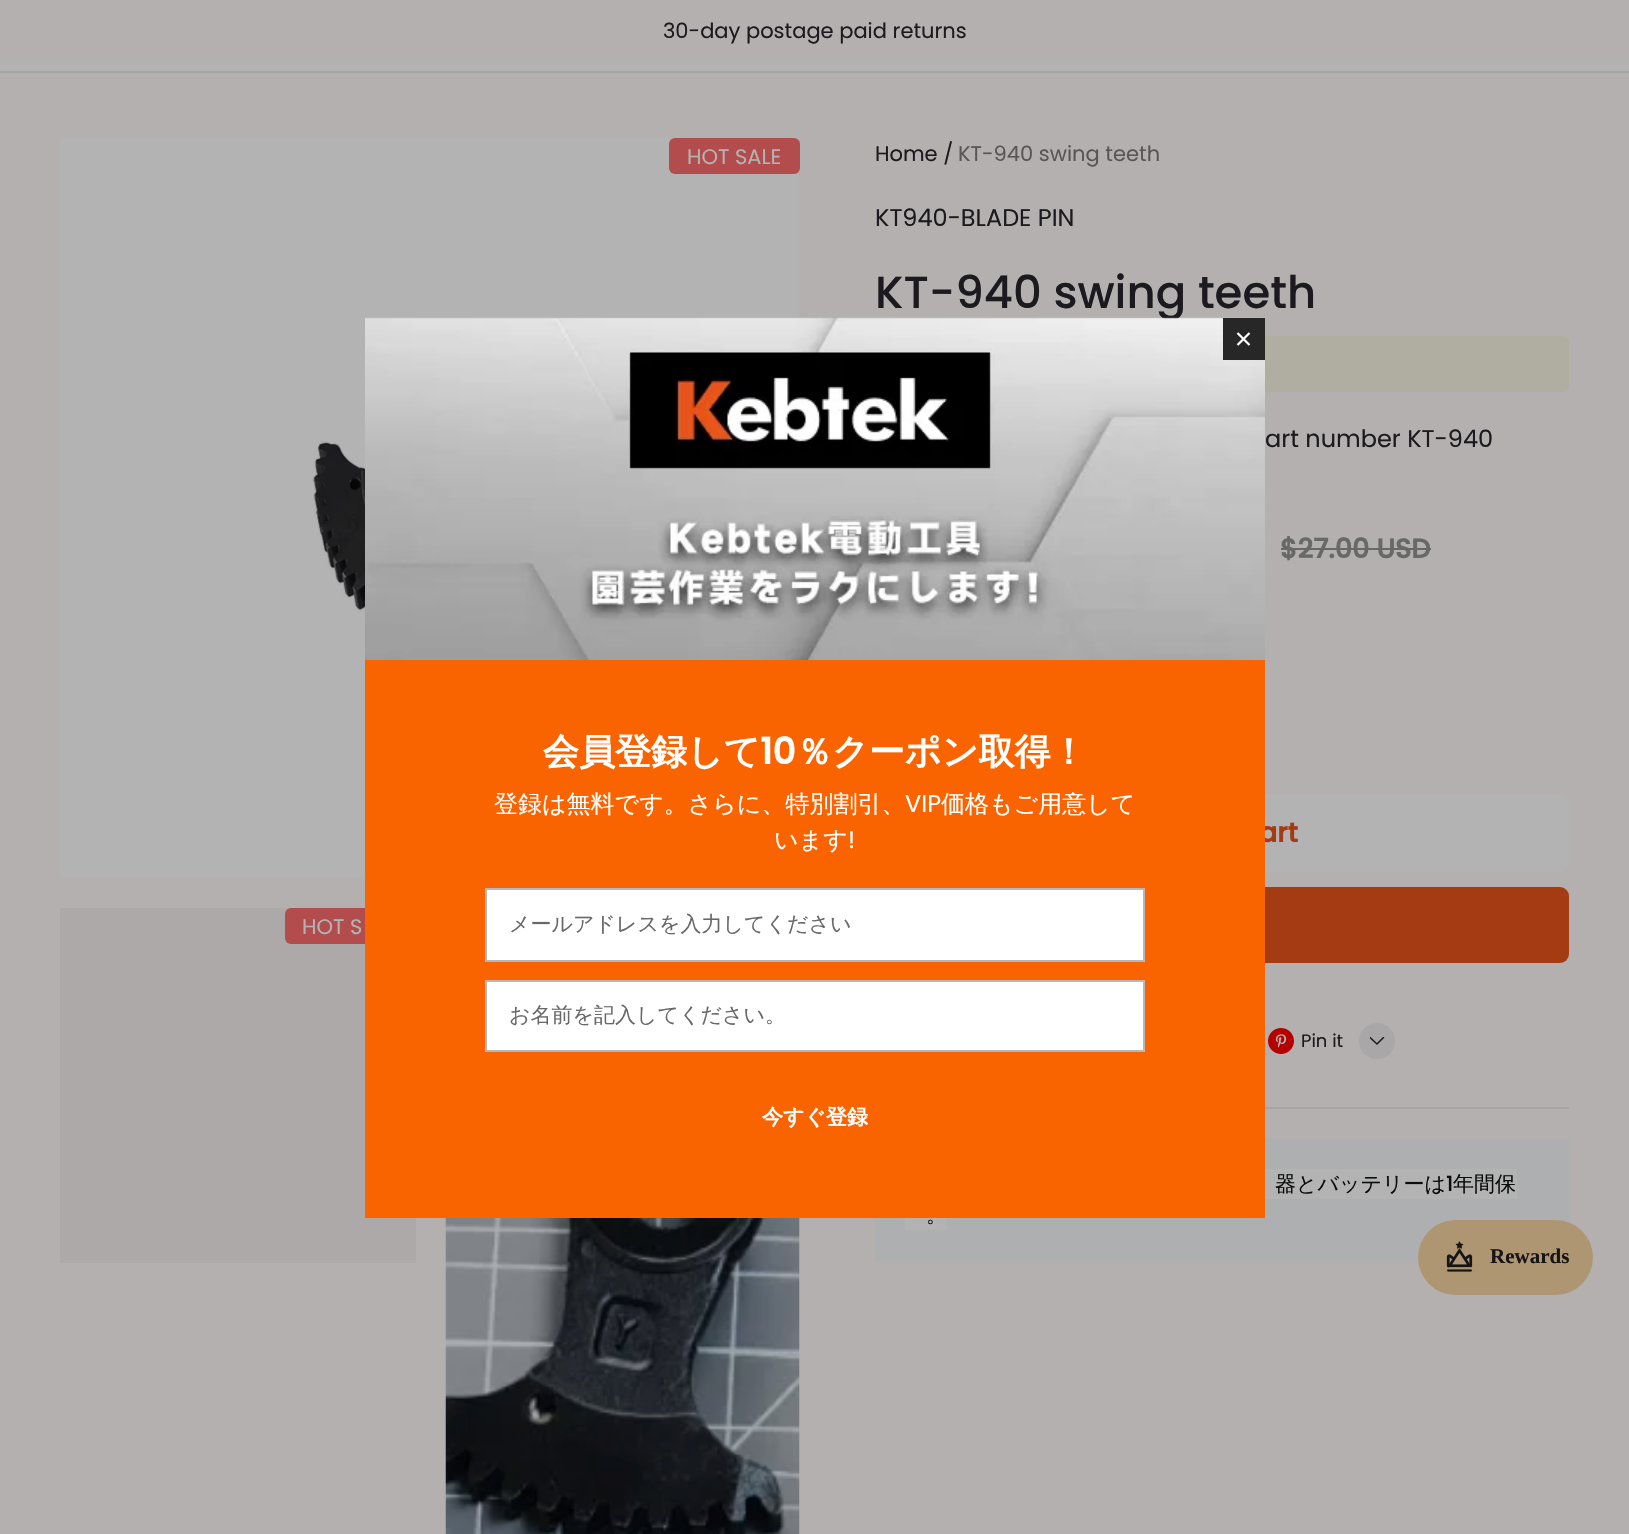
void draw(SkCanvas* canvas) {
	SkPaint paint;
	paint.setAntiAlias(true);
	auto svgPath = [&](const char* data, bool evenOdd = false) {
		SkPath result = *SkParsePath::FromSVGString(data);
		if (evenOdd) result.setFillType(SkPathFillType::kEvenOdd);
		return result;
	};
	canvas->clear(0xffb3b0af);
	SkFont f1(fontMgr->matchFamilyStyle("Poppins", SkFontStyle::Normal()), 21);
	f1.setSubpixel(true);
	paint.setColor(0xff1d1a1f);
	canvas->drawString("30-day postage paid returns", 663, 38, f1, paint);
	paint.setColor(0xffb3b3b3);
	canvas->drawRect(SkRect::MakeXYWH(0, 62, 1629, 9), paint);
	paint.setColor(0xffa4a5a5);
	canvas->drawRect(SkRect::MakeXYWH(0, 71, 1629, 2), paint);
	canvas->drawImageRect(SkImages::DeferredFromEncodedData(SkData::MakeFromFileName("img1.png")), SkRect::MakeXYWH(60, 138, 739, 739), SkSamplingOptions());
	paint.setColor(0xffb34c4c);
	canvas->drawRoundRect(SkRect::MakeXYWH(669, 138, 131, 36), 6, 6, paint);
	paint.setColor(0xffb3b3b3);
	canvas->drawString("HOT SALE", 687, 164, f1, paint);
	paint.setColor(0xffaca9a8);
	canvas->drawRect(SkRect::MakeXYWH(60, 908, 356, 355), paint);
	paint.setColor(0xffb34c4c);
	canvas->drawRoundRect(SkRect::MakeXYWH(285, 908, 131, 36), 6, 6, paint);
	paint.setColor(0xffb3b3b3);
	canvas->drawString("HOT S", 302, 934, f1, paint);
	canvas->drawImageRect(SkImages::DeferredFromEncodedData(SkData::MakeFromFileName("img2.png")), SkRect::MakeXYWH(445, 1218, 355, 316), SkSamplingOptions());
	paint.setColor(0xff1d1a1f);
	canvas->drawString("Home /", 875, 161, f1, paint);
	paint.setColor(0xff595658);
	canvas->drawString("KT-940 swing teeth", 958, 161, f1, paint);
	SkFont f2(fontMgr->matchFamilyStyle("Poppins", SkFontStyle::Normal()), 24);
	f2.setSubpixel(true);
	paint.setColor(0xff1d1a1f);
	canvas->drawString("KT940-BLADE PIN", 875, 226, f2, paint);
	SkFont f3(fontMgr->matchFamilyStyle("Poppins", SkFontStyle(500, SkFontStyle::kNormal_Width, SkFontStyle::kUpright_Slant)), 45);
	f3.setSubpixel(true);
	canvas->drawString("KT-940 swing teeth", 875, 308, f3, paint);
	paint.setColor(0xffb0ada1);
	canvas->drawRoundRect(SkRect::MakeXYWH(875, 336, 694, 56), 6, 6, paint);
	paint.setColor(0xff1d1a1f);
	canvas->drawString("art number KT-940", 1265, 447, f2, paint);
	SkFont f4(fontMgr->matchFamilyStyle("Poppins", SkFontStyle::Bold()), 27);
	f4.setSubpixel(true);
	paint.setColor(0xff686868);
	canvas->drawString("$27.00 USD", 1280, 558, f4, paint);
	canvas->drawRect(SkRect::MakeXYWH(1281, 548, 150, 2), paint);
	paint.setColor(0xffb3b3b3);
	canvas->drawRoundRect(SkRect::MakeXYWH(875, 795, 694, 77), 9, 9, paint);
	paint.setColor(0xffa43b12);
	canvas->drawString("art", 1259, 842, f4, paint);
	canvas->drawRoundRect(SkRect::MakeXYWH(875, 887, 694, 76), 9, 9, paint);
	canvas->drawImageRect(SkImages::DeferredFromEncodedData(SkData::MakeFromFileName("img3.png")), SkRect::MakeXYWH(1268, 1028, 26, 26), SkSamplingOptions());
	SkFont f5(fontMgr->matchFamilyStyle("Poppins", SkFontStyle::Normal()), 18);
	f5.setSubpixel(true);
	paint.setColor(0xff1d1a1f);
	canvas->drawString("Pin it", 1301, 1047, f5, paint);
	paint.setColor(0xffa9a7a7);
	canvas->drawCircle(1377, 1041, 18, paint);
	canvas->save();
	canvas->clipRect(SkRect::MakeXYWH(1370, 1037, 15, 9));
	paint.setStroke(true);
	paint.setStrokeWidth(1.5);
	paint.setStrokeCap(SkPaint::kRound_Cap);
	paint.setColor(0xff1d1a1f);
	canvas->drawPath(svgPath("M1370 1037.5L1377 1044L1383.5 1037.5"), paint);
	canvas->restore();
	paint.setStroke(false);
	paint.setColor(0xffa4a5a5);
	canvas->drawRect(SkRect::MakeXYWH(1265, 1107, 304, 2), paint);
	paint.setColor(0xffaeafb0);
	canvas->drawRect(SkRect::MakeXYWH(875, 1139, 694, 123), paint);
	paint.setColor(0xffb3b3b3);
	canvas->drawRect(SkRect::MakeXYWH(1265, 1169, 252, 30), paint);
	SkFont f6(fontMgr->matchFamilyStyle("WenQuanYi Zen Hei", SkFontStyle(500, SkFontStyle::kNormal_Width, SkFontStyle::kUpright_Slant)), 21);
	f6.setSubpixel(true);
	paint.setColor(0xff0b0c0c);
	canvas->drawString("器とバッテリーは", 1275, 1191, f6, paint);
	SkFont f7(fontMgr->matchFamilyStyle("Poppins", SkFontStyle(500, SkFontStyle::kNormal_Width, SkFontStyle::kUpright_Slant)), 21);
	f7.setSubpixel(true);
	canvas->drawString("1", 1446, 1191, f7, paint);
	canvas->drawString("年間保", 1453, 1191, f6, paint);
	paint.setColor(0xffb3b3b3);
	canvas->drawRect(SkRect::MakeXYWH(905, 1218, 42, 12), paint);
	paint.setColor(0xff0b0c0c);
	canvas->drawString("。", 926, 1222, f6, paint);
	canvas->drawImageRect(SkImages::DeferredFromEncodedData(SkData::MakeFromFileName("img4.png")), SkRect::MakeXYWH(365, 317, 900, 343), SkSamplingOptions());
	paint.setColor(0xff272727);
	canvas->drawRect(SkRect::MakeXYWH(1223, 318, 42, 42), paint);
	paint.setStroke(true);
	paint.setStrokeWidth(2.2);
	paint.setStrokeCap(SkPaint::kButt_Cap);
	paint.setColor(0xffffffff);
	canvas->drawPath(svgPath("M1249.5 333L1237.5 345M1237.5 333L1249.5 345"), paint);
	paint.setStroke(false);
	paint.setColor(0xfffa6400);
	canvas->drawRect(SkRect::MakeXYWH(365, 660, 900, 558), paint);
	SkFont f8(fontMgr->matchFamilyStyle("WenQuanYi Zen Hei", SkFontStyle::Bold()), 36);
	f8.setSubpixel(true);
	paint.setColor(0xffffffff);
	canvas->drawString("会員登録して", 543, 764, f8, paint);
	SkFont f9(fontMgr->matchFamilyStyle("Poppins", SkFontStyle::Bold()), 36);
	f9.setSubpixel(true);
	canvas->drawString("10", 760, 764, f9, paint);
	canvas->drawString("％クーポン取得！", 796, 764, f8, paint);
	SkFont f10(fontMgr->matchFamilyStyle("WenQuanYi Zen Hei", SkFontStyle(500, SkFontStyle::kNormal_Width, SkFontStyle::kUpright_Slant)), 24);
	f10.setSubpixel(true);
	canvas->drawString("登録は無料です。さらに、特別割引、", 494, 812, f10, paint);
	canvas->drawString("VIP", 905, 812, f2, paint);
	canvas->drawString("価格もご用意して", 941, 812, f10, paint);
	canvas->drawString("います", 774, 848, f10, paint);
	canvas->drawString("!", 848, 848, f2, paint);
	canvas->drawRoundRect(SkRect::MakeXYWH(485, 888, 660, 74), 1.5, 1.5, paint);
	paint.setStroke(true);
	paint.setStrokeWidth(2);
	paint.setColor(0xffb7b7b7);
	canvas->drawRoundRect(SkRect::MakeXYWH(486, 889, 658, 72), 0.5, 0.5, paint);
	paint.setStroke(false);
	paint.setColor(0xff686868);
	canvas->drawString("メールアドレスを入力してください", 509, 931, f6, paint);
	paint.setColor(0xffffffff);
	canvas->drawRoundRect(SkRect::MakeXYWH(485, 980, 660, 72), 1.5, 1.5, paint);
	paint.setStroke(true);
	paint.setColor(0xffb7b7b7);
	canvas->drawRoundRect(SkRect::MakeXYWH(486, 981, 658, 70), 0.5, 0.5, paint);
	paint.setStroke(false);
	paint.setColor(0xff686868);
	canvas->drawString("お名前を記入してください。", 509, 1022, f6, paint);
	SkFont f11(fontMgr->matchFamilyStyle("WenQuanYi Zen Hei", SkFontStyle::Bold()), 21);
	f11.setSubpixel(true);
	paint.setColor(0xffffffff);
	canvas->drawString("今すぐ登録", 762, 1124, f11, paint);
	paint.setColor(0xffae9673);
	canvas->drawRoundRect(SkRect::MakeXYWH(1418, 1220, 175, 75), 37.5, 37.5, paint);
	canvas->drawImageRect(SkImages::DeferredFromEncodedData(SkData::MakeFromFileName("img5.png")), SkRect::MakeXYWH(1446, 1241, 27, 31), SkSamplingOptions());
	SkFont f12(fontMgr->matchFamilyStyle("Liberation Serif", SkFontStyle::Bold()), 21);
	f12.setSubpixel(true);
	paint.setColor(0xff161515);
	canvas->drawString("Rewards", 1490, 1263, f12, paint);
}
